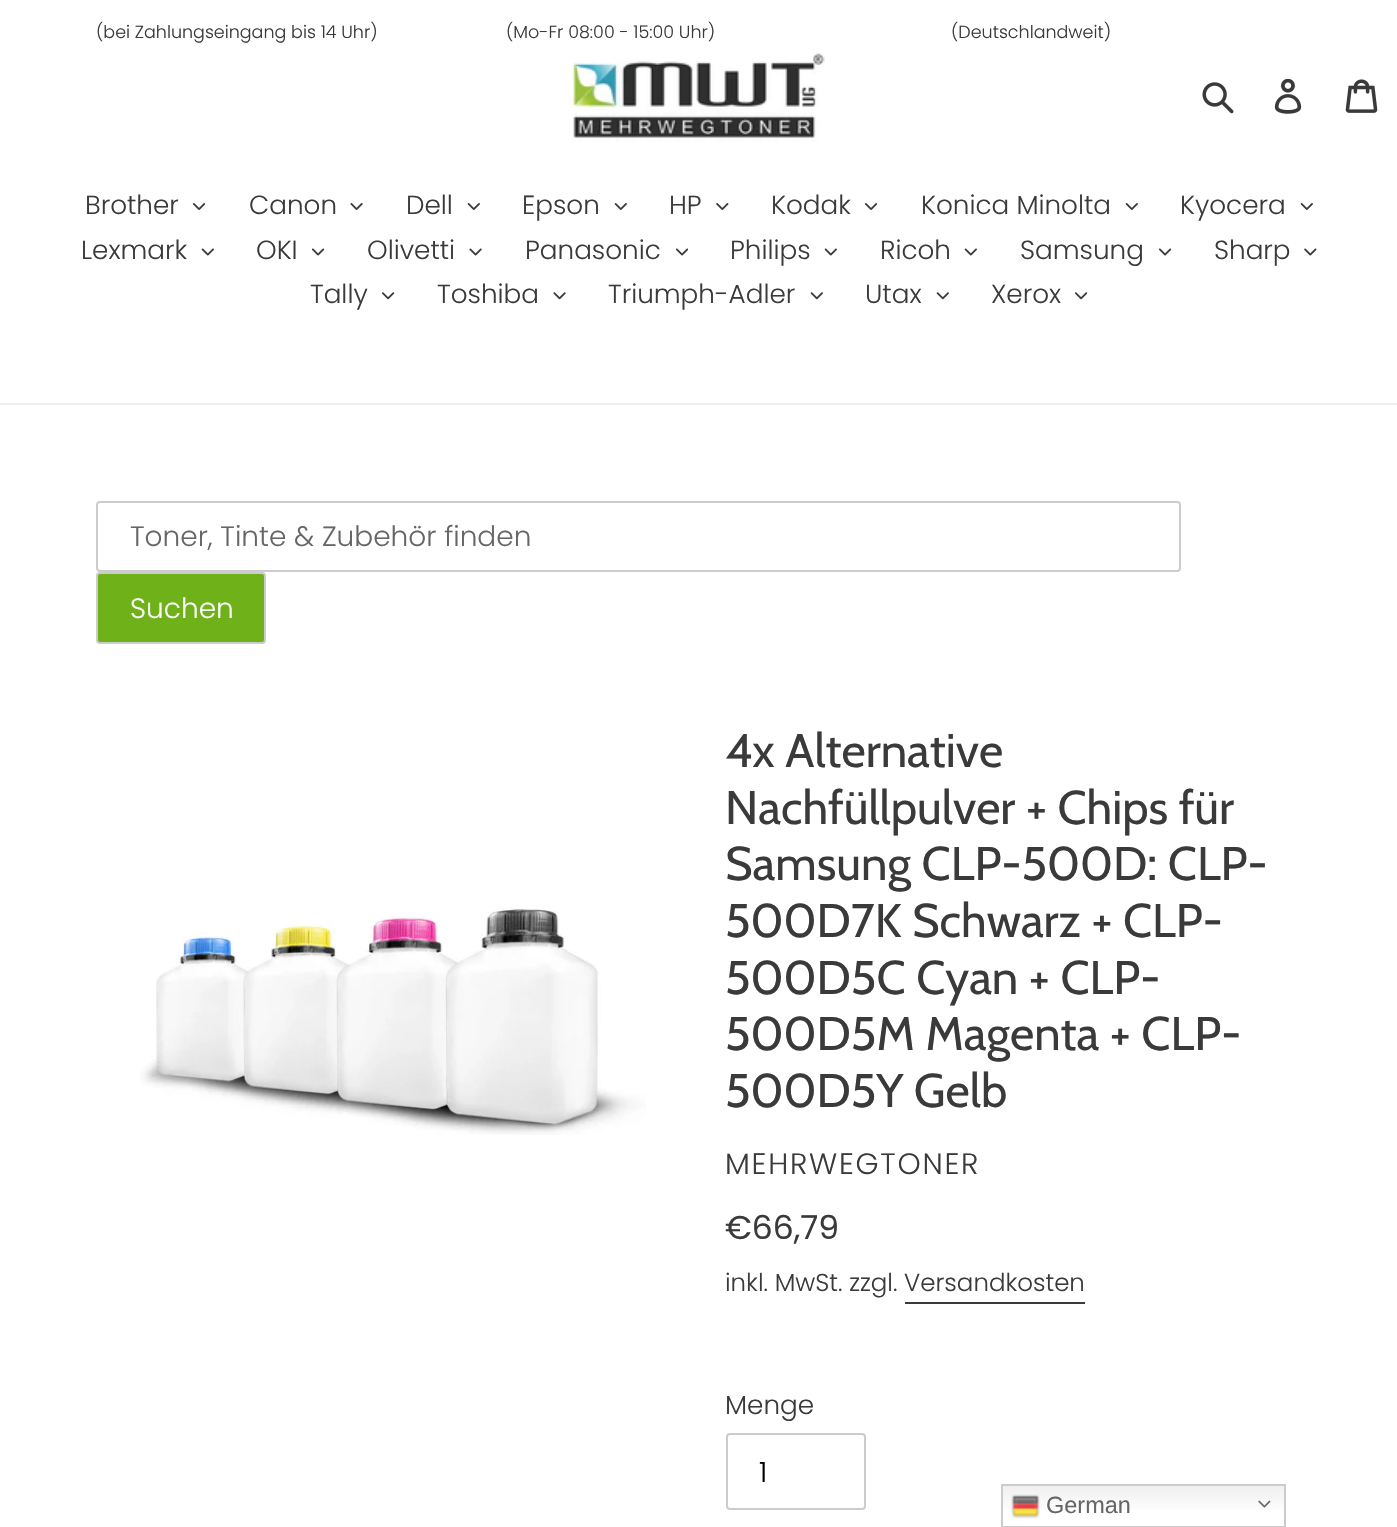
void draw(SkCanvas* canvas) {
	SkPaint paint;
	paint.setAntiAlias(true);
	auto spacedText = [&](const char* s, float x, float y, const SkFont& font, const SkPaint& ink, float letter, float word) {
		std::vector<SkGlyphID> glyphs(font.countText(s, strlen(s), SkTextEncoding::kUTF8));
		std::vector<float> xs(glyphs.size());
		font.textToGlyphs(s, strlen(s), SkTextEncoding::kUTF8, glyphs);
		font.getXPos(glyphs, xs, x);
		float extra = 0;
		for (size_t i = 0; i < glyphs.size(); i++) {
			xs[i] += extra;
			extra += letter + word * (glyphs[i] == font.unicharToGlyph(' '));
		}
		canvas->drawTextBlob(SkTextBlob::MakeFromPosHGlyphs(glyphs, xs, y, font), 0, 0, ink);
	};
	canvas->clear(0xffffffff);
	SkFont f1(fontMgr->matchFamilyStyle("Poppins", SkFontStyle(300, SkFontStyle::kNormal_Width, SkFontStyle::kUpright_Slant)), 17.5);
	f1.setSubpixel(true);
	paint.setColor(0xff3a3a3a);
	canvas->drawString("(bei Zahlungseingang bis 14 Uhr)", 96, 38, f1, paint);
	canvas->drawString("(Mo-Fr 08:00 - 15:00 Uhr)", 506, 38, f1, paint);
	canvas->drawString("(Deutschlandweit)", 951, 38, f1, paint);
	canvas->drawImageRect(SkImages::DeferredFromEncodedData(SkData::MakeFromFileName("img1.png")), SkRect::MakeXYWH(571, 53, 254, 89), SkSamplingOptions());
	canvas->drawImageRect(SkImages::DeferredFromEncodedData(SkData::MakeFromFileName("img2.png")), SkRect::MakeXYWH(1202, 82, 32, 32), SkSamplingOptions());
	canvas->drawImageRect(SkImages::DeferredFromEncodedData(SkData::MakeFromFileName("img3.png")), SkRect::MakeXYWH(1274, 79, 28, 35), SkSamplingOptions());
	canvas->drawImageRect(SkImages::DeferredFromEncodedData(SkData::MakeFromFileName("img4.png")), SkRect::MakeXYWH(1345, 79, 33, 34), SkSamplingOptions());
	paint.setColor(0xffeeeeee);
	canvas->drawRect(SkRect::MakeXYWH(0, 403, 1397, 2), paint);
	SkFont f2(fontMgr->matchFamilyStyle("Poppins", SkFontStyle(300, SkFontStyle::kNormal_Width, SkFontStyle::kUpright_Slant)), 26.25);
	f2.setSubpixel(true);
	paint.setColor(0xff3a3a3a);
	canvas->drawString("Brother", 85, 214, f2, paint);
	canvas->drawImageRect(SkImages::DeferredFromEncodedData(SkData::MakeFromFileName("img5.png")), SkRect::MakeXYWH(193, 203, 13, 7), SkSamplingOptions());
	canvas->drawString("Canon", 249, 214, f2, paint);
	canvas->drawImageRect(SkImages::DeferredFromEncodedData(SkData::MakeFromFileName("img6.png")), SkRect::MakeXYWH(350, 203, 13, 7), SkSamplingOptions());
	canvas->drawString("Dell", 406, 214, f2, paint);
	canvas->drawImageRect(SkImages::DeferredFromEncodedData(SkData::MakeFromFileName("img7.png")), SkRect::MakeXYWH(467, 203, 13, 7), SkSamplingOptions());
	canvas->drawString("Epson", 522, 214, f2, paint);
	canvas->drawImageRect(SkImages::DeferredFromEncodedData(SkData::MakeFromFileName("img7.png")), SkRect::MakeXYWH(614, 203, 13, 7), SkSamplingOptions());
	canvas->drawString("HP", 669, 214, f2, paint);
	canvas->drawImageRect(SkImages::DeferredFromEncodedData(SkData::MakeFromFileName("img8.png")), SkRect::MakeXYWH(716, 203, 13, 7), SkSamplingOptions());
	canvas->drawString("Kodak", 771, 214, f2, paint);
	canvas->drawImageRect(SkImages::DeferredFromEncodedData(SkData::MakeFromFileName("img5.png")), SkRect::MakeXYWH(865, 203, 13, 7), SkSamplingOptions());
	canvas->drawString("Konica Minolta", 921, 214, f2, paint);
	canvas->drawImageRect(SkImages::DeferredFromEncodedData(SkData::MakeFromFileName("img7.png")), SkRect::MakeXYWH(1125, 203, 13, 7), SkSamplingOptions());
	canvas->drawString("Kyocera", 1180, 214, f2, paint);
	canvas->drawImageRect(SkImages::DeferredFromEncodedData(SkData::MakeFromFileName("img7.png")), SkRect::MakeXYWH(1300, 203, 13, 7), SkSamplingOptions());
	canvas->drawString("Lexmark", 81, 259, f2, paint);
	canvas->drawImageRect(SkImages::DeferredFromEncodedData(SkData::MakeFromFileName("img9.png")), SkRect::MakeXYWH(201, 248, 13, 8), SkSamplingOptions());
	canvas->drawString("OKI", 256, 259, f2, paint);
	canvas->drawImageRect(SkImages::DeferredFromEncodedData(SkData::MakeFromFileName("img10.png")), SkRect::MakeXYWH(312, 248, 13, 8), SkSamplingOptions());
	canvas->drawString("Olivetti", 367, 259, f2, paint);
	canvas->drawImageRect(SkImages::DeferredFromEncodedData(SkData::MakeFromFileName("img11.png")), SkRect::MakeXYWH(469, 248, 13, 8), SkSamplingOptions());
	canvas->drawString("Panasonic", 525, 259, f2, paint);
	canvas->drawImageRect(SkImages::DeferredFromEncodedData(SkData::MakeFromFileName("img12.png")), SkRect::MakeXYWH(676, 248, 12, 8), SkSamplingOptions());
	canvas->drawString("Philips", 730, 259, f2, paint);
	canvas->drawImageRect(SkImages::DeferredFromEncodedData(SkData::MakeFromFileName("img9.png")), SkRect::MakeXYWH(824, 248, 13, 8), SkSamplingOptions());
	canvas->drawString("Ricoh", 880, 259, f2, paint);
	canvas->drawImageRect(SkImages::DeferredFromEncodedData(SkData::MakeFromFileName("img9.png")), SkRect::MakeXYWH(964, 248, 13, 8), SkSamplingOptions());
	canvas->drawString("Samsung", 1020, 259, f2, paint);
	canvas->drawImageRect(SkImages::DeferredFromEncodedData(SkData::MakeFromFileName("img12.png")), SkRect::MakeXYWH(1159, 248, 12, 8), SkSamplingOptions());
	canvas->drawString("Sharp", 1214, 259, f2, paint);
	canvas->drawImageRect(SkImages::DeferredFromEncodedData(SkData::MakeFromFileName("img13.png")), SkRect::MakeXYWH(1304, 248, 13, 8), SkSamplingOptions());
	canvas->drawString("Tally", 310, 303, f2, paint);
	canvas->drawImageRect(SkImages::DeferredFromEncodedData(SkData::MakeFromFileName("img14.png")), SkRect::MakeXYWH(382, 292, 13, 8), SkSamplingOptions());
	canvas->drawString("Toshiba", 437, 303, f2, paint);
	canvas->drawImageRect(SkImages::DeferredFromEncodedData(SkData::MakeFromFileName("img15.png")), SkRect::MakeXYWH(553, 292, 13, 8), SkSamplingOptions());
	canvas->drawString("Triumph-Adler", 608, 303, f2, paint);
	canvas->drawImageRect(SkImages::DeferredFromEncodedData(SkData::MakeFromFileName("img16.png")), SkRect::MakeXYWH(810, 292, 13, 8), SkSamplingOptions());
	canvas->drawString("Utax", 865, 303, f2, paint);
	canvas->drawImageRect(SkImages::DeferredFromEncodedData(SkData::MakeFromFileName("img16.png")), SkRect::MakeXYWH(936, 292, 13, 8), SkSamplingOptions());
	canvas->drawString("Xerox", 991, 303, f2, paint);
	canvas->drawImageRect(SkImages::DeferredFromEncodedData(SkData::MakeFromFileName("img14.png")), SkRect::MakeXYWH(1075, 292, 13, 8), SkSamplingOptions());
	paint.setStroke(true);
	paint.setStrokeWidth(2);
	paint.setColor(0xffcccccc);
	canvas->drawRoundRect(SkRect::MakeXYWH(97, 502, 1083, 69), 3, 3, paint);
	SkFont f3(fontMgr->matchFamilyStyle("Poppins", SkFontStyle(300, SkFontStyle::kNormal_Width, SkFontStyle::kUpright_Slant)), 28);
	f3.setSubpixel(true);
	paint.setStroke(false);
	paint.setColor(0xff666666);
	canvas->drawString("Toner, Tinte & Zubehör finden", 130, 546, f3, paint);
	paint.setColor(0xff6eb118);
	canvas->drawRoundRect(SkRect::MakeXYWH(97, 573, 168, 70), 3, 3, paint);
	paint.setStroke(true);
	paint.setColor(0xffcccccc);
	canvas->drawRoundRect(SkRect::MakeXYWH(97, 573, 168, 70), 3, 3, paint);
	paint.setStroke(false);
	paint.setColor(0xffffffff);
	canvas->drawString("Suchen", 130, 618, f3, paint);
	canvas->drawImageRect(SkImages::DeferredFromEncodedData(SkData::MakeFromFileName("img17.png")), SkRect::MakeXYWH(140, 907, 506, 228), SkSamplingOptions());
	SkFont f4(fontMgr->matchFamilyStyle("Cabin", SkFontStyle::Normal()), 47.25);
	f4.setSubpixel(true);
	paint.setColor(0xff3a3a3a);
	canvas->drawString("4x Alternative", 725, 767, f4, paint);
	canvas->drawString("Nachfüllpulver + Chips für", 725, 824, f4, paint);
	canvas->drawString("Samsung CLP-500D: CLP-", 725, 880, f4, paint);
	canvas->drawString("500D7K Schwarz + CLP-", 725, 937, f4, paint);
	canvas->drawString("500D5C Cyan + CLP-", 725, 994, f4, paint);
	canvas->drawString("500D5M Magenta + CLP-", 725, 1050, f4, paint);
	canvas->drawString("500D5Y Gelb", 725, 1107, f4, paint);
	SkFont f5(fontMgr->matchFamilyStyle("Poppins", SkFontStyle(300, SkFontStyle::kNormal_Width, SkFontStyle::kUpright_Slant)), 29.5);
	f5.setSubpixel(true);
	spacedText("MEHRWEGTONER", 725, 1174, f5, paint, 1.75, 0);
	SkFont f6(fontMgr->matchFamilyStyle("Poppins", SkFontStyle::Normal()), 33);
	f6.setSubpixel(true);
	canvas->drawString("€66,79", 725, 1239, f6, paint);
	SkFont f7(fontMgr->matchFamilyStyle("Poppins", SkFontStyle(300, SkFontStyle::kNormal_Width, SkFontStyle::kUpright_Slant)), 24.5);
	f7.setSubpixel(true);
	canvas->drawString("inkl. MwSt. zzgl. Versandkosten", 725, 1291, f7, paint);
	canvas->drawRect(SkRect::MakeXYWH(905, 1302, 180, 2), paint);
	canvas->drawString("Menge", 725, 1414, f2, paint);
	paint.setStroke(true);
	paint.setColor(0xffcccccc);
	canvas->drawRoundRect(SkRect::MakeXYWH(727, 1434, 138, 75), 3, 3, paint);
	paint.setStroke(false);
	paint.setColor(0xff000000);
	canvas->drawString("1", 759, 1482, f3, paint);
	{
		const SkColor colors[] = {0xffefefef, 0xffffffff};
		const float stops[] = {0, 0.7};
		const SkPoint ends[] = {{1144, 1484}, {1144, 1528}};
		paint.setShader(SkGradientShader::MakeLinear(ends, colors, stops, 2, SkTileMode::kClamp));
		paint.setAlpha(255);
	}
	canvas->drawRect(SkRect::MakeXYWH(1003, 1486, 281, 24), paint);
	paint.setStroke(true);
	paint.setShader(nullptr);
	paint.setColor(0xffcccccc);
	canvas->drawRect(SkRect::MakeXYWH(1002, 1485, 283, 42), paint);
	canvas->drawImageRect(SkImages::DeferredFromEncodedData(SkData::MakeFromFileName("img18.png")), SkRect::MakeXYWH(1011, 1494, 29, 25), SkSamplingOptions());
	SkFont f8(fontMgr->matchFamilyStyle("Liberation Sans", SkFontStyle::Normal()), 23.5);
	f8.setSubpixel(true);
	paint.setStroke(false);
	paint.setColor(0xff666666);
	canvas->drawString("German", 1046, 1513, f8, paint);
	canvas->drawImageRect(SkImages::DeferredFromEncodedData(SkData::MakeFromFileName("img19.png")), SkRect::MakeXYWH(1258, 1500, 13, 8), SkSamplingOptions());
}
